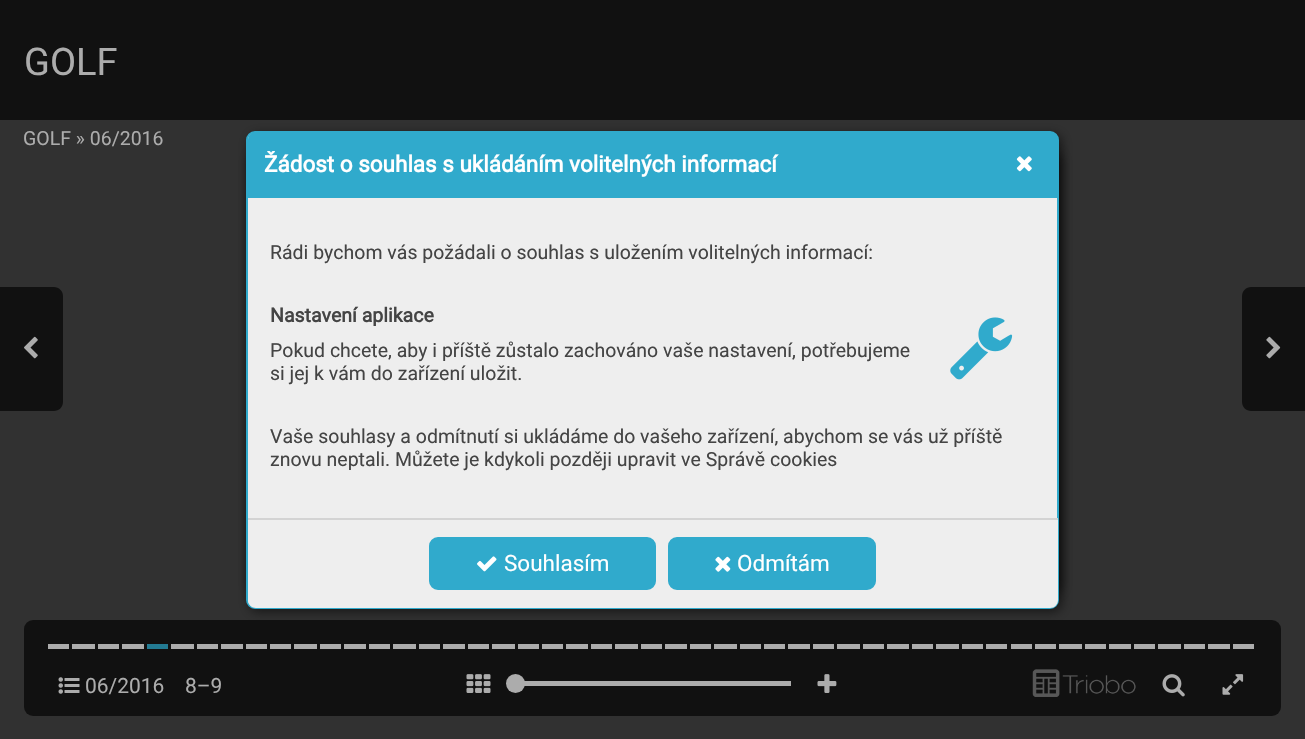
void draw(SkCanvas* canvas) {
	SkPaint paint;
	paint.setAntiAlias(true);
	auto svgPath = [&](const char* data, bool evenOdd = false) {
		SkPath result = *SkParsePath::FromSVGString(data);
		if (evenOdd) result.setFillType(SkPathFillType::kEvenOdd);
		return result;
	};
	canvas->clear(0xff313131);
	paint.setColor(0xff111111);
	canvas->drawRect(SkRect::MakeXYWH(0, 0, 1305, 120), paint);
	SkFont f1(fontMgr->matchFamilyStyle("Roboto", SkFontStyle::Normal()), 38);
	f1.setSubpixel(true);
	paint.setColor(0xffacacac);
	canvas->drawString("GOLF", 24, 75, f1, paint);
	SkFont f2(fontMgr->matchFamilyStyle("Roboto", SkFontStyle::Normal()), 19.5);
	f2.setSubpixel(true);
	canvas->drawString("GOLF » 06/2016", 23, 145, f2, paint);
	paint.setColor(0xff111111);
	canvas->drawPath(svgPath("M0 287H54C59 287 63 291 63 296V402C63 407 59 411 54 411H0Z"), paint);
	canvas->drawImageRect(SkImages::DeferredFromEncodedData(SkData::MakeFromFileName("img1.png")), SkRect::MakeXYWH(24, 336, 14, 23), SkSamplingOptions());
	canvas->drawPath(svgPath("M1251 287H1305V411H1251C1246 411 1242 407 1242 402V296C1242 291 1246 287 1251 287Z"), paint);
	canvas->drawImageRect(SkImages::DeferredFromEncodedData(SkData::MakeFromFileName("img2.png")), SkRect::MakeXYWH(1266, 336, 15, 23), SkSamplingOptions());
	canvas->drawRoundRect(SkRect::MakeXYWH(24, 620, 1257, 96), 9, 9, paint);
	paint.setColor(0xffacacac);
	canvas->drawRect(SkRect::MakeXYWH(48, 644, 21, 5), paint);
	canvas->drawRect(SkRect::MakeXYWH(72, 644, 23, 5), paint);
	canvas->drawRect(SkRect::MakeXYWH(98, 644, 21, 5), paint);
	canvas->drawRect(SkRect::MakeXYWH(122, 644, 22, 5), paint);
	canvas->drawRect(SkRect::MakeXYWH(171, 644, 23, 5), paint);
	canvas->drawRect(SkRect::MakeXYWH(197, 644, 21, 5), paint);
	canvas->drawRect(SkRect::MakeXYWH(221, 644, 22, 5), paint);
	canvas->drawRect(SkRect::MakeXYWH(246, 644, 21, 5), paint);
	canvas->drawRect(SkRect::MakeXYWH(270, 644, 21, 5), paint);
	canvas->drawRect(SkRect::MakeXYWH(294, 644, 23, 5), paint);
	canvas->drawRect(SkRect::MakeXYWH(320, 644, 21, 5), paint);
	canvas->drawRect(SkRect::MakeXYWH(344, 644, 22, 5), paint);
	canvas->drawRect(SkRect::MakeXYWH(369, 644, 21, 5), paint);
	canvas->drawRect(SkRect::MakeXYWH(393, 644, 23, 5), paint);
	canvas->drawRect(SkRect::MakeXYWH(419, 644, 21, 5), paint);
	canvas->drawRect(SkRect::MakeXYWH(443, 644, 22, 5), paint);
	canvas->drawRect(SkRect::MakeXYWH(468, 644, 21, 5), paint);
	canvas->drawRect(SkRect::MakeXYWH(492, 644, 23, 5), paint);
	canvas->drawRect(SkRect::MakeXYWH(518, 644, 21, 5), paint);
	canvas->drawRect(SkRect::MakeXYWH(542, 644, 21, 5), paint);
	canvas->drawRect(SkRect::MakeXYWH(566, 644, 22, 5), paint);
	canvas->drawRect(SkRect::MakeXYWH(591, 644, 21, 5), paint);
	canvas->drawRect(SkRect::MakeXYWH(615, 644, 23, 5), paint);
	canvas->drawRect(SkRect::MakeXYWH(641, 644, 21, 5), paint);
	canvas->drawRect(SkRect::MakeXYWH(665, 644, 22, 5), paint);
	canvas->drawRect(SkRect::MakeXYWH(690, 644, 21, 5), paint);
	canvas->drawRect(SkRect::MakeXYWH(714, 644, 23, 5), paint);
	canvas->drawRect(SkRect::MakeXYWH(740, 644, 21, 5), paint);
	canvas->drawRect(SkRect::MakeXYWH(764, 644, 21, 5), paint);
	canvas->drawRect(SkRect::MakeXYWH(788, 644, 22, 5), paint);
	canvas->drawRect(SkRect::MakeXYWH(813, 644, 21, 5), paint);
	canvas->drawRect(SkRect::MakeXYWH(837, 644, 23, 5), paint);
	canvas->drawRect(SkRect::MakeXYWH(863, 644, 21, 5), paint);
	canvas->drawRect(SkRect::MakeXYWH(887, 644, 22, 5), paint);
	canvas->drawRect(SkRect::MakeXYWH(912, 644, 21, 5), paint);
	canvas->drawRect(SkRect::MakeXYWH(936, 644, 23, 5), paint);
	canvas->drawRect(SkRect::MakeXYWH(962, 644, 21, 5), paint);
	canvas->drawRect(SkRect::MakeXYWH(986, 644, 21, 5), paint);
	canvas->drawRect(SkRect::MakeXYWH(1011, 644, 21, 5), paint);
	canvas->drawRect(SkRect::MakeXYWH(1035, 644, 21, 5), paint);
	canvas->drawRect(SkRect::MakeXYWH(1059, 644, 23, 5), paint);
	canvas->drawRect(SkRect::MakeXYWH(1085, 644, 21, 5), paint);
	canvas->drawRect(SkRect::MakeXYWH(1109, 644, 22, 5), paint);
	canvas->drawRect(SkRect::MakeXYWH(1134, 644, 21, 5), paint);
	canvas->drawRect(SkRect::MakeXYWH(1158, 644, 23, 5), paint);
	canvas->drawRect(SkRect::MakeXYWH(1184, 644, 21, 5), paint);
	canvas->drawRect(SkRect::MakeXYWH(1208, 644, 22, 5), paint);
	canvas->drawRect(SkRect::MakeXYWH(1233, 644, 21, 5), paint);
	paint.setColor(0xff237b93);
	canvas->drawRect(SkRect::MakeXYWH(147, 644, 21, 5), paint);
	canvas->drawImageRect(SkImages::DeferredFromEncodedData(SkData::MakeFromFileName("img3.png")), SkRect::MakeXYWH(58, 677, 22, 17), SkSamplingOptions());
	SkFont f3(fontMgr->matchFamilyStyle("Roboto", SkFontStyle::Normal()), 21);
	f3.setSubpixel(true);
	paint.setColor(0xffacacac);
	canvas->drawString("06/2016", 85, 693, f3, paint);
	canvas->drawString("8–9", 185, 693, f3, paint);
	canvas->drawImageRect(SkImages::DeferredFromEncodedData(SkData::MakeFromFileName("img4.png")), SkRect::MakeXYWH(466, 674, 25, 19), SkSamplingOptions());
	canvas->drawRect(SkRect::MakeXYWH(524, 681, 267, 5), paint);
	canvas->drawCircle(515.5, 683.5, 9.5, paint);
	canvas->drawImageRect(SkImages::DeferredFromEncodedData(SkData::MakeFromFileName("img5.png")), SkRect::MakeXYWH(817, 674, 20, 19), SkSamplingOptions());
	canvas->drawImageRect(SkImages::DeferredFromEncodedData(SkData::MakeFromFileName("img6.png")), SkRect::MakeXYWH(1032, 669, 104, 28), SkSamplingOptions());
	canvas->drawImageRect(SkImages::DeferredFromEncodedData(SkData::MakeFromFileName("img7.png")), SkRect::MakeXYWH(1162, 674, 23, 23), SkSamplingOptions());
	canvas->drawImageRect(SkImages::DeferredFromEncodedData(SkData::MakeFromFileName("img8.png")), SkRect::MakeXYWH(1222, 674, 22, 21), SkSamplingOptions());
	paint.setColor(0x87000000);
	paint.setMaskFilter(SkMaskFilter::MakeBlur(kNormal_SkBlurStyle, 5.5));
	canvas->drawRoundRect(SkRect::MakeXYWH(249, 152, 813, 442), 9, 9, paint);
	paint.setMaskFilter(nullptr);
	paint.setMaskFilter(SkMaskFilter::MakeBlur(kNormal_SkBlurStyle, 5.5));
	canvas->drawRoundRect(SkRect::MakeXYWH(249, 134, 813, 478), 9, 9, paint);
	paint.setMaskFilter(nullptr);
	paint.setColor(0xffeeeeee);
	canvas->drawRoundRect(SkRect::MakeXYWH(247, 132, 811, 476), 8, 8, paint);
	paint.setStroke(true);
	paint.setStrokeWidth(2);
	paint.setColor(0xff30aacc);
	canvas->drawRoundRect(SkRect::MakeXYWH(247, 132, 811, 476), 8, 8, paint);
	paint.setStroke(false);
	canvas->drawPath(svgPath("M256 132H1050C1054.5 132 1058 135.5 1058 140V198H248V140C248 135.5 251.5 132 256 132Z"), paint);
	SkFont f4(fontMgr->matchFamilyStyle("Roboto", SkFontStyle::Bold()), 22.5);
	f4.setSubpixel(true);
	paint.setColor(0xffffffff);
	canvas->drawString("Žádost o souhlas s ukládáním volitelných informací", 264, 172, f4, paint);
	canvas->drawImageRect(SkImages::DeferredFromEncodedData(SkData::MakeFromFileName("img9.png")), SkRect::MakeXYWH(1016, 156, 16, 16), SkSamplingOptions());
	paint.setColor(0xff444444);
	canvas->drawString("Rádi bychom vás požádali o souhlas s uložením volitelných informací:", 270, 259, f2, paint);
	SkFont f5(fontMgr->matchFamilyStyle("Roboto", SkFontStyle::Bold()), 19.5);
	f5.setSubpixel(true);
	canvas->drawString("Nastavení aplikace", 270, 322, f5, paint);
	canvas->drawImageRect(SkImages::DeferredFromEncodedData(SkData::MakeFromFileName("img10.png")), SkRect::MakeXYWH(950, 317, 63, 63), SkSamplingOptions());
	canvas->drawString("Pokud chcete, aby i příště zůstalo zachováno vaše nastavení, potřebujeme", 270, 357, f2, paint);
	canvas->drawString("si jej k vám do zařízení uložit.", 270, 380, f2, paint);
	canvas->drawString("Vaše souhlasy a odmítnutí si ukládáme do vašeho zařízení, abychom se vás už příště", 270, 443, f2, paint);
	canvas->drawString("znovu neptali. Můžete je kdykoli později upravit ve Správě cookies", 270, 466, f2, paint);
	paint.setColor(0xffeeeeee);
	canvas->drawPath(svgPath("M248 518H1058V600C1058 604.5 1054.5 608 1050 608H256C251.5 608 248 604.5 248 600Z"), paint);
	paint.setColor(0xffd3d3d3);
	canvas->drawRect(SkRect::MakeXYWH(248, 518, 810, 2), paint);
	paint.setColor(0xff30aacc);
	canvas->drawRoundRect(SkRect::MakeXYWH(430, 538, 225, 51), 8, 8, paint);
	paint.setStroke(true);
	canvas->drawRoundRect(SkRect::MakeXYWH(430, 538, 225, 51), 8, 8, paint);
	canvas->drawImageRect(SkImages::DeferredFromEncodedData(SkData::MakeFromFileName("img11.png")), SkRect::MakeXYWH(477, 556, 20, 16), SkSamplingOptions());
	SkFont f6(fontMgr->matchFamilyStyle("Roboto", SkFontStyle::Normal()), 22.5);
	f6.setSubpixel(true);
	paint.setStroke(false);
	paint.setColor(0xffffffff);
	canvas->drawString("Souhlasím", 504, 571, f6, paint);
	paint.setColor(0xff30aacc);
	canvas->drawRoundRect(SkRect::MakeXYWH(669, 538, 206, 51), 8, 8, paint);
	paint.setStroke(true);
	canvas->drawRoundRect(SkRect::MakeXYWH(669, 538, 206, 51), 8, 8, paint);
	canvas->drawImageRect(SkImages::DeferredFromEncodedData(SkData::MakeFromFileName("img12.png")), SkRect::MakeXYWH(715, 556, 16, 16), SkSamplingOptions());
	paint.setStroke(false);
	paint.setColor(0xffffffff);
	canvas->drawString("Odmítám", 737, 571, f6, paint);
}
